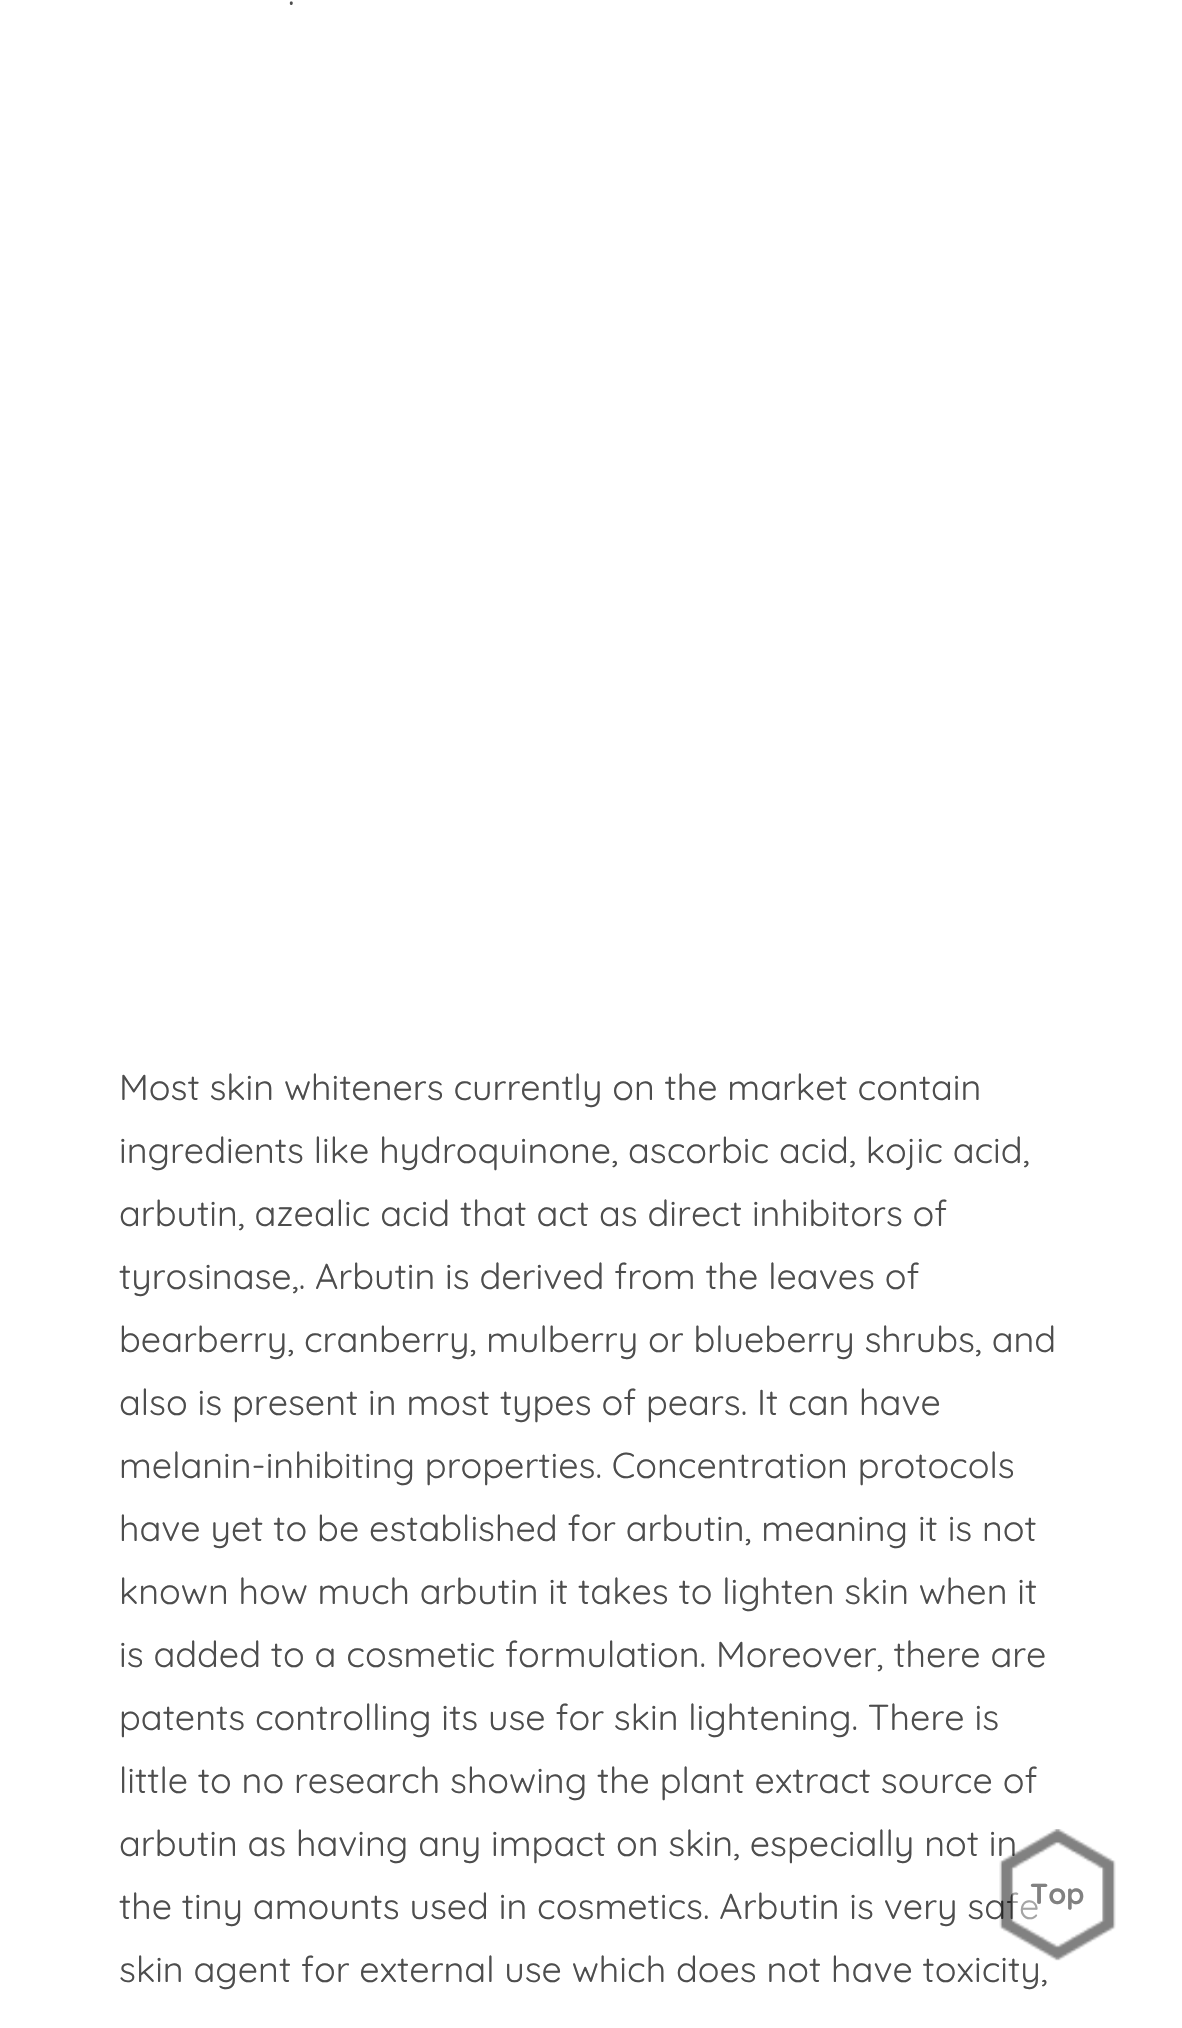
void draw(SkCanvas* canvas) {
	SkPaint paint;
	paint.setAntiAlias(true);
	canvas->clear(0xffffffff);
	SkFont f1(fontMgr->matchFamilyStyle("Quicksand", SkFontStyle::Normal()), 36);
	f1.setSubpixel(true);
	paint.setColor(0xff4d4d4d);
	canvas->drawString(".", 288, 5, f1, paint);
	canvas->drawString("Most skin whiteners currently on the market contain", 119, 1100, f1, paint);
	canvas->drawString("ingredients like hydroquinone, ascorbic acid, kojic acid,", 119, 1163, f1, paint);
	canvas->drawString("arbutin, azealic acid that act as direct inhibitors of", 119, 1226, f1, paint);
	canvas->drawString("tyrosinase,. Arbutin is derived from the leaves of", 119, 1289, f1, paint);
	canvas->drawString("bearberry, cranberry, mulberry or blueberry shrubs, and", 119, 1352, f1, paint);
	canvas->drawString("also is present in most types of pears. It can have", 119, 1415, f1, paint);
	canvas->drawString("melanin-inhibiting properties. Concentration protocols", 119, 1478, f1, paint);
	canvas->drawString("have yet to be established for arbutin, meaning it is not", 119, 1541, f1, paint);
	canvas->drawString("known how much arbutin it takes to lighten skin when it", 119, 1604, f1, paint);
	canvas->drawString("is added to a cosmetic formulation. Moreover, there are", 119, 1667, f1, paint);
	canvas->drawString("patents controlling its use for skin lightening. There is", 119, 1730, f1, paint);
	canvas->drawString("little to no research showing the plant extract source of", 119, 1793, f1, paint);
	canvas->drawString("arbutin as having any impact on skin, especially not in", 119, 1856, f1, paint);
	canvas->drawString("the tiny amounts used in cosmetics. Arbutin is very safe", 119, 1919, f1, paint);
	canvas->drawString("skin agent for external use which does not have toxicity,", 119, 1982, f1, paint);
	canvas->drawImageRect(SkImages::DeferredFromEncodedData(SkData::MakeFromFileName("img1.png")), SkRect::MakeXYWH(999, 1829, 117, 132), SkSamplingOptions());
	SkFont f2(fontMgr->matchFamilyStyle("Quicksand", SkFontStyle::Bold()), 29);
	f2.setSubpixel(true);
	paint.setColor(0xff818181);
	canvas->drawString("Top", 1030, 1904, f2, paint);
}
